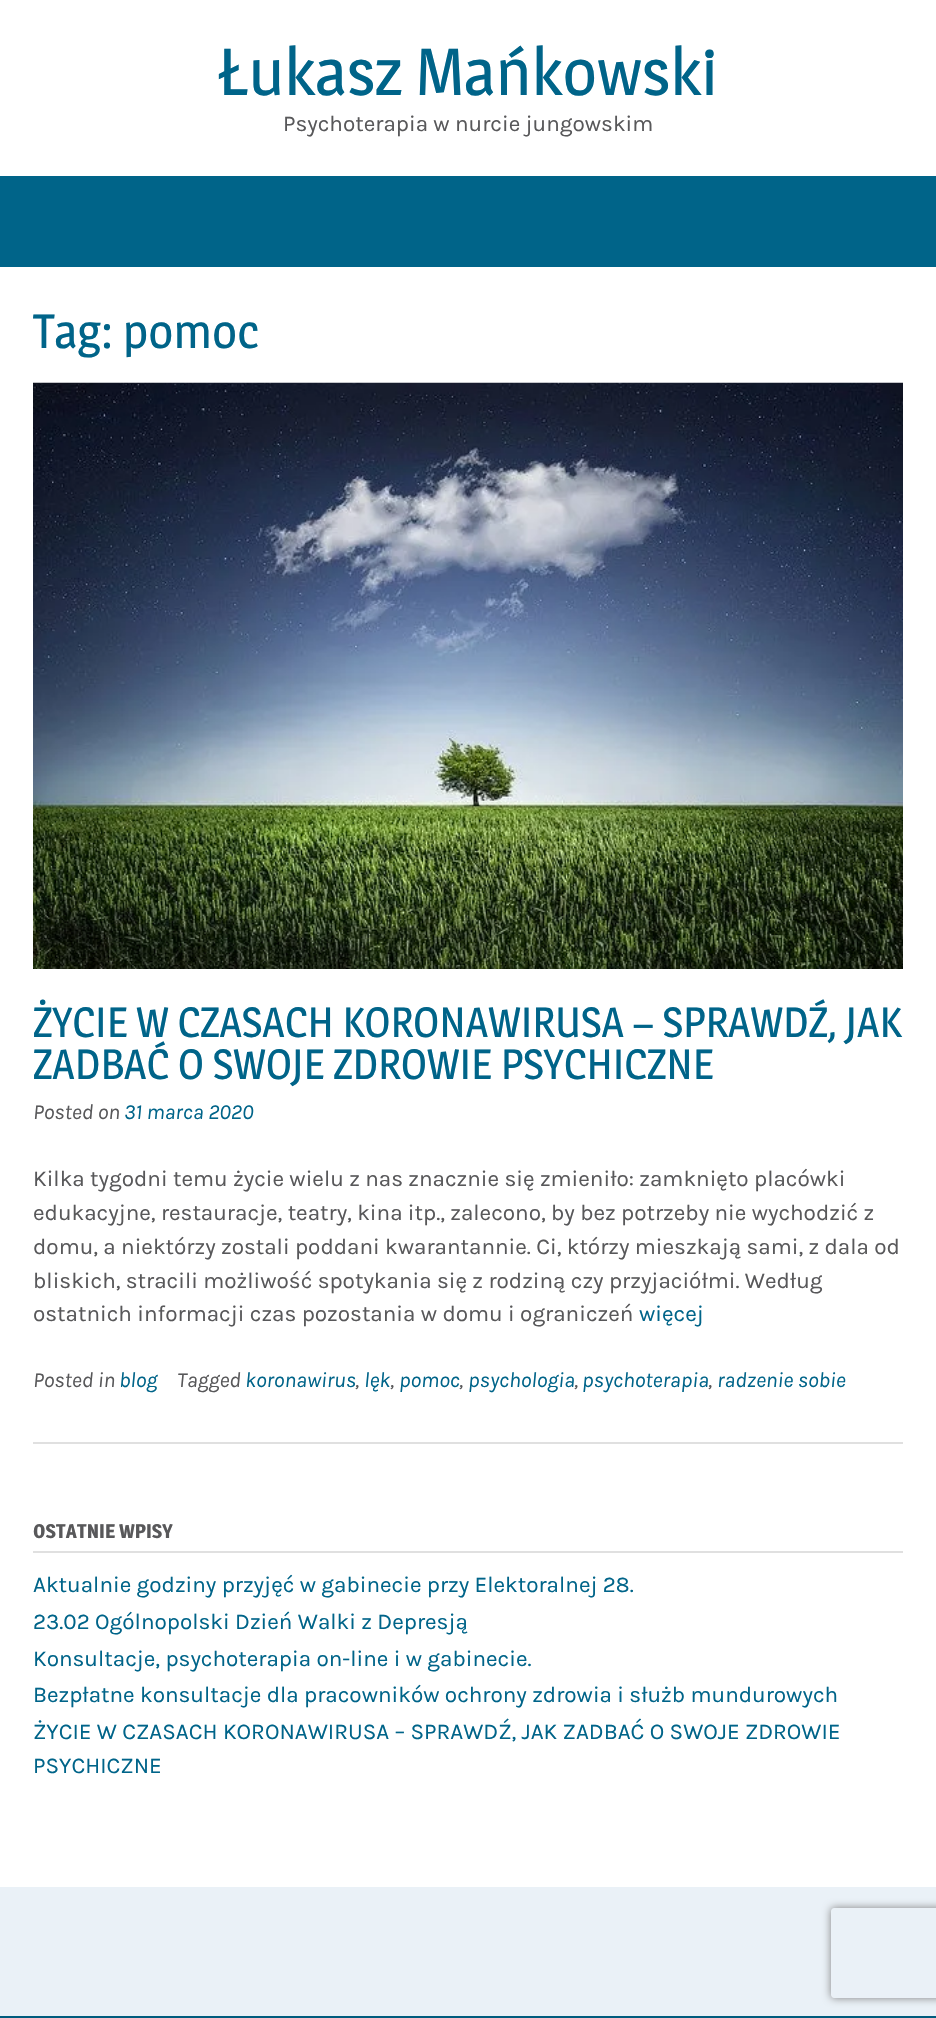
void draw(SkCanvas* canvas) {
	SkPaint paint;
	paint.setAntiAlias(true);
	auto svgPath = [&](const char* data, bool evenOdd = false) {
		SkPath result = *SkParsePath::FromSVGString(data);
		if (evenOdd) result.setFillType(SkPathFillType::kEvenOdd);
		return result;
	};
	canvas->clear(0xffffffff);
	SkFont f1(fontMgr->matchFamilyStyle("Magra", SkFontStyle::Normal()), 66);
	f1.setSubpixel(true);
	paint.setColor(0xff006489);
	canvas->drawString("Łukasz Mańkowski", 218, 95, f1, paint);
	SkFont f2(fontMgr->matchFamilyStyle("Karla", SkFontStyle::Normal()), 22.5);
	f2.setSubpixel(true);
	paint.setColor(0xff58585a);
	canvas->drawString("Psychoterapia w nurcie jungowskim", 283, 131, f2, paint);
	paint.setColor(0xff006489);
	canvas->drawRect(SkRect::MakeXYWH(0, 176, 936, 91), paint);
	SkFont f3(fontMgr->matchFamilyStyle("Magra", SkFontStyle::Normal()), 48);
	f3.setSubpixel(true);
	canvas->drawString("Tag: pomoc", 33, 348, f3, paint);
	paint.setColor(0xffe0e0e0);
	canvas->drawRect(SkRect::MakeXYWH(33, 1442, 870, 2), paint);
	canvas->drawImageRect(SkImages::DeferredFromEncodedData(SkData::MakeFromFileName("img1.png")), SkRect::MakeXYWH(33, 382, 870, 587), SkSamplingOptions());
	SkFont f4(fontMgr->matchFamilyStyle("Magra", SkFontStyle::Normal()), 42);
	f4.setSubpixel(true);
	paint.setColor(0xff006489);
	canvas->drawString("ŻYCIE W CZASACH KORONAWIRUSA – SPRAWDŹ, JAK", 33, 1037, f4, paint);
	canvas->drawString("ZADBAĆ O SWOJE ZDROWIE PSYCHICZNE", 33, 1079, f4, paint);
	SkFont f5(fontMgr->matchFamilyStyle("Karla", SkFontStyle::Italic()), 21.5);
	f5.setSubpixel(true);
	paint.setColor(0xff58585a);
	canvas->drawString("Posted on", 33, 1119, f5, paint);
	paint.setColor(0xff006489);
	canvas->drawString("31 marca 2020", 124, 1119, f5, paint);
	paint.setColor(0xff58585a);
	canvas->drawString("Kilka tygodni temu życie wielu z nas znacznie się zmieniło: zamknięto placówki", 33, 1186, f2, paint);
	canvas->drawString("edukacyjne, restauracje, teatry, kina itp., zalecono, by bez potrzeby nie wychodzić z", 33, 1220, f2, paint);
	canvas->drawString("domu, a niektórzy zostali poddani kwarantannie. Ci, którzy mieszkają sami, z dala od", 33, 1254, f2, paint);
	canvas->drawString("bliskich, stracili możliwość spotykania się z rodziną czy przyjaciółmi. Według", 33, 1288, f2, paint);
	canvas->drawString("ostatnich informacji czas pozostania w domu i ograniczeń", 33, 1321, f2, paint);
	paint.setColor(0xff006489);
	canvas->drawString("więcej", 639, 1321, f2, paint);
	paint.setColor(0xff58585a);
	canvas->drawString("Posted in", 33, 1387, f5, paint);
	paint.setColor(0xff006489);
	canvas->drawString("blog", 119, 1387, f5, paint);
	paint.setColor(0xff58585a);
	canvas->drawString("Tagged", 177, 1387, f5, paint);
	paint.setColor(0xff006489);
	canvas->drawString("koronawirus", 245, 1387, f5, paint);
	paint.setColor(0xff58585a);
	canvas->drawString(",", 355, 1387, f5, paint);
	paint.setColor(0xff006489);
	canvas->drawString("lęk", 364, 1387, f5, paint);
	paint.setColor(0xff58585a);
	canvas->drawString(",", 390, 1387, f5, paint);
	paint.setColor(0xff006489);
	canvas->drawString("pomoc", 399, 1387, f5, paint);
	paint.setColor(0xff58585a);
	canvas->drawString(",", 459, 1387, f5, paint);
	paint.setColor(0xff006489);
	canvas->drawString("psychologia", 468, 1387, f5, paint);
	paint.setColor(0xff58585a);
	canvas->drawString(",", 574, 1387, f5, paint);
	paint.setColor(0xff006489);
	canvas->drawString("psychoterapia", 582, 1387, f5, paint);
	paint.setColor(0xff58585a);
	canvas->drawString(",", 708, 1387, f5, paint);
	paint.setColor(0xff006489);
	canvas->drawString("radzenie sobie", 717, 1387, f5, paint);
	paint.setColor(0xffe0e0e0);
	canvas->drawRect(SkRect::MakeXYWH(33, 1551, 870, 2), paint);
	SkFont f6(fontMgr->matchFamilyStyle("Magra", SkFontStyle::Bold()), 19.5);
	f6.setSubpixel(true);
	paint.setColor(0xff58585a);
	canvas->drawString("OSTATNIE WPISY", 33, 1538, f6, paint);
	paint.setColor(0xff006489);
	canvas->drawString("Aktualnie godziny przyjęć w gabinecie przy Elektoralnej 28.", 33, 1592, f2, paint);
	canvas->drawString("23.02 Ogólnopolski Dzień Walki z Depresją", 33, 1629, f2, paint);
	canvas->drawString("Konsultacje, psychoterapia on-line i w gabinecie.", 33, 1666, f2, paint);
	canvas->drawString("Bezpłatne konsultacje dla pracowników ochrony zdrowia i służb mundurowych", 33, 1702, f2, paint);
	canvas->drawString("ŻYCIE W CZASACH KORONAWIRUSA – SPRAWDŹ, JAK ZADBAĆ O SWOJE ZDROWIE", 33, 1739, f2, paint);
	canvas->drawString("PSYCHICZNE", 33, 1773, f2, paint);
	paint.setColor(0xffeaf1f7);
	canvas->drawRect(SkRect::MakeXYWH(0, 1887, 936, 129), paint);
	paint.setColor(0xff005c7e);
	canvas->drawRect(SkRect::MakeXYWH(0, 2016, 936, 2), paint);
	canvas->save();
	canvas->clipPath(svgPath("M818 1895H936V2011H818ZM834 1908H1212C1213.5 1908 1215 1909.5 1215 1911V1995C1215 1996.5 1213.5 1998 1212 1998H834C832.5 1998 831 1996.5 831 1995V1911C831 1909.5 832.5 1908 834 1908Z", true), true);
	paint.setColor(0xff808080);
	paint.setMaskFilter(SkMaskFilter::MakeBlur(kNormal_SkBlurStyle, 4));
	canvas->drawRoundRect(SkRect::MakeXYWH(831, 1908, 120, 90), 3, 3, paint);
	paint.setMaskFilter(nullptr);
	canvas->restore();
}
